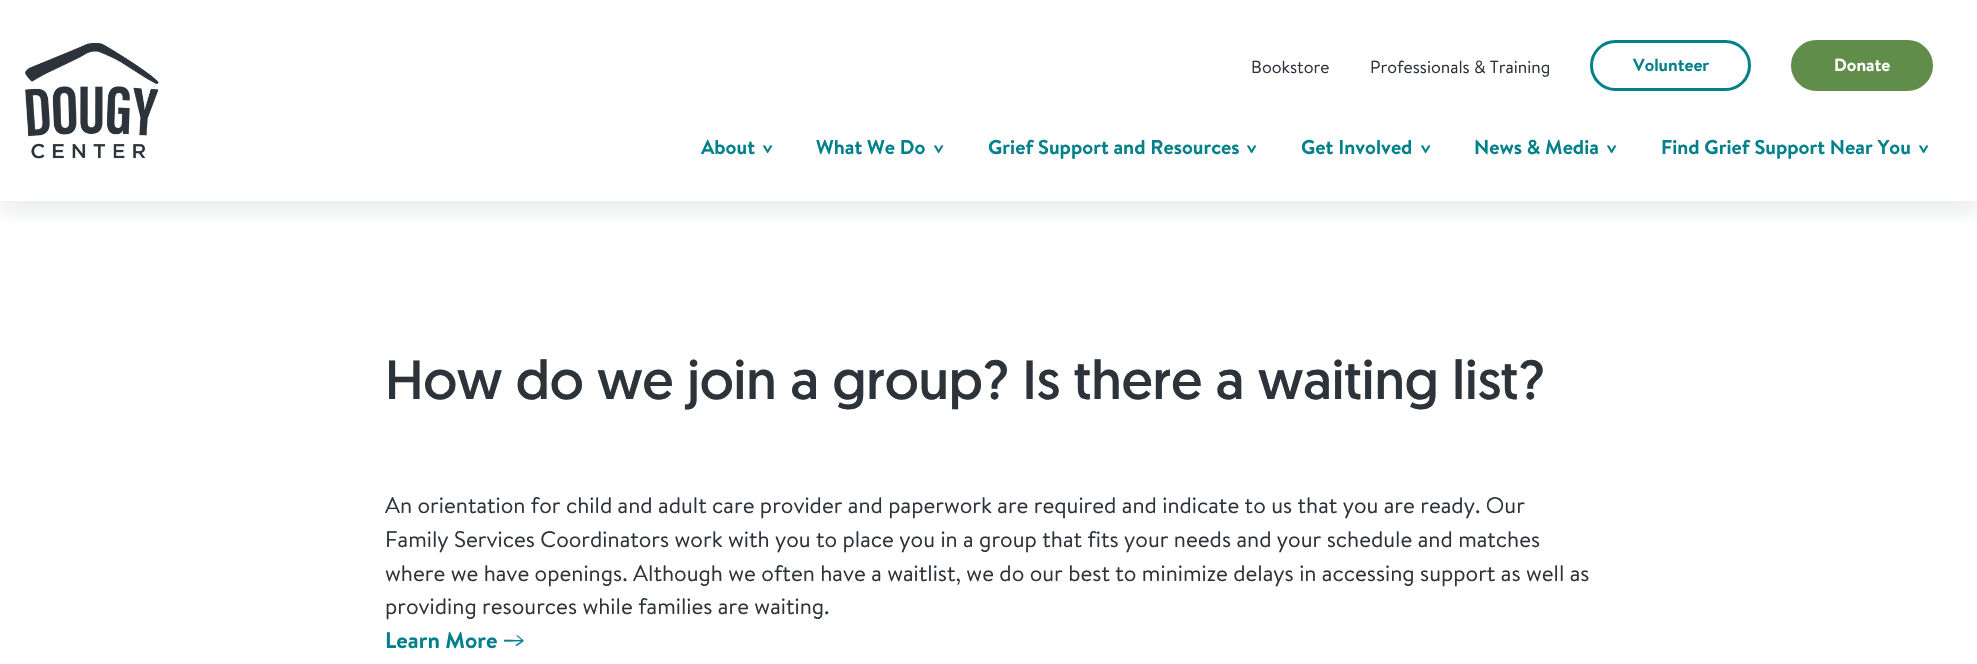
void draw(SkCanvas* canvas) {
	SkPaint paint;
	paint.setAntiAlias(true);
	canvas->clear(0xffffffff);
	canvas->save();
	canvas->clipRect(SkRect::MakeXYWH(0, 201, 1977, 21));
	paint.setColor(0x1a13373a);
	paint.setMaskFilter(SkMaskFilter::MakeBlur(kNormal_SkBlurStyle, 12.5));
	canvas->drawRect(SkRect::MakeXYWH(0, 10, 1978, 201), paint);
	paint.setMaskFilter(nullptr);
	canvas->restore();
	canvas->drawImageRect(SkImages::DeferredFromEncodedData(SkData::MakeFromFileName("img1.png")), SkRect::MakeXYWH(25, 43, 134, 116), SkSamplingOptions());
	SkFont f1(fontMgr->matchFamilyStyle("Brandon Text", SkFontStyle::Normal()), 17.5);
	f1.setSubpixel(true);
	paint.setColor(0xff2c333a);
	canvas->drawString("Bookstore", 1251, 73, f1, paint);
	canvas->drawString("Professionals & Training", 1370, 73, f1, paint);
	paint.setStroke(true);
	paint.setStrokeWidth(3);
	paint.setColor(0xff00808a);
	canvas->drawRoundRect(SkRect::MakeXYWH(1591.5, 41.5, 158, 48), 24, 24, paint);
	SkFont f2(fontMgr->matchFamilyStyle("Brandon Text", SkFontStyle::Bold()), 17.5);
	f2.setSubpixel(true);
	paint.setStroke(false);
	canvas->drawString("Volunteer", 1633, 71, f2, paint);
	paint.setColor(0xff608d4a);
	canvas->drawRoundRect(SkRect::MakeXYWH(1792.5, 41.5, 139, 48), 24, 24, paint);
	paint.setStroke(true);
	canvas->drawRoundRect(SkRect::MakeXYWH(1792.5, 41.5, 139, 48), 24, 24, paint);
	paint.setStroke(false);
	paint.setColor(0xffffffff);
	canvas->drawString("Donate", 1834, 71, f2, paint);
	SkFont f3(fontMgr->matchFamilyStyle("Brandon Text", SkFontStyle::Bold()), 20);
	f3.setSubpixel(true);
	paint.setColor(0xff00808a);
	canvas->drawString("About", 701, 154, f3, paint);
	canvas->save();
	canvas->rotate(90, 763, 143);
	canvas->drawString(">", 763, 143, f3, paint);
	canvas->restore();
	canvas->drawString("What We Do", 816, 154, f3, paint);
	canvas->save();
	canvas->rotate(90, 934, 143);
	canvas->drawString(">", 934, 143, f3, paint);
	canvas->restore();
	canvas->drawString("Grief Support and Resources", 988, 154, f3, paint);
	canvas->save();
	canvas->rotate(90, 1247, 143);
	canvas->drawString(">", 1247, 143, f3, paint);
	canvas->restore();
	canvas->drawString("Get Involved", 1301, 154, f3, paint);
	canvas->save();
	canvas->rotate(90, 1421, 143);
	canvas->drawString(">", 1421, 143, f3, paint);
	canvas->restore();
	canvas->drawString("News & Media", 1474, 154, f3, paint);
	canvas->save();
	canvas->rotate(90, 1607, 143);
	canvas->drawString(">", 1607, 143, f3, paint);
	canvas->restore();
	canvas->drawString("Find Grief Support Near You", 1661, 154, f3, paint);
	canvas->save();
	canvas->rotate(90, 1919, 143);
	canvas->drawString(">", 1919, 143, f3, paint);
	canvas->restore();
	SkFont f4(fontMgr->matchFamilyStyle("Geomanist", SkFontStyle::Normal()), 55);
	f4.setSubpixel(true);
	paint.setColor(0xff2c333a);
	canvas->drawString("How do we join a group? Is there a waiting list?", 385, 399, f4, paint);
	SkFont f5(fontMgr->matchFamilyStyle("Brandon Text", SkFontStyle::Normal()), 22.5);
	f5.setSubpixel(true);
	canvas->drawString("An orientation for child and adult care provider and paperwork are required and indicate to us that you are ready. Our", 385, 513, f5, paint);
	canvas->drawString("Family Services Coordinators work with you to place you in a group that fits your needs and your schedule and matches", 385, 547, f5, paint);
	canvas->drawString("where we have openings. Although we often have a waitlist, we do our best to minimize delays in accessing support as well as", 385, 581, f5, paint);
	canvas->drawString("providing resources while families are waiting.", 385, 614, f5, paint);
	SkFont f6(fontMgr->matchFamilyStyle("Brandon Text", SkFontStyle::Bold()), 22.5);
	f6.setSubpixel(true);
	paint.setColor(0xff00808a);
	canvas->drawString("Learn More", 385, 648, f6, paint);
	canvas->drawImageRect(SkImages::DeferredFromEncodedData(SkData::MakeFromFileName("img2.png")), SkRect::MakeXYWH(504, 635, 20, 11), SkSamplingOptions());
}
